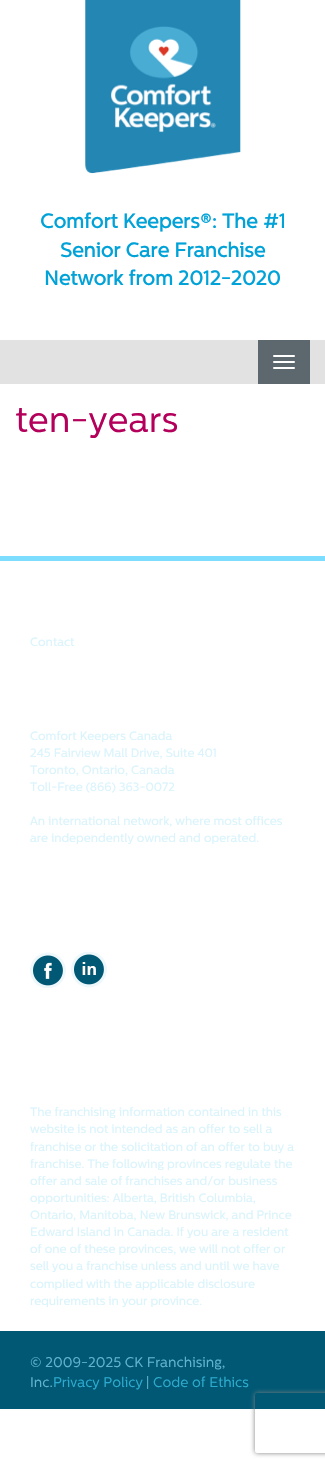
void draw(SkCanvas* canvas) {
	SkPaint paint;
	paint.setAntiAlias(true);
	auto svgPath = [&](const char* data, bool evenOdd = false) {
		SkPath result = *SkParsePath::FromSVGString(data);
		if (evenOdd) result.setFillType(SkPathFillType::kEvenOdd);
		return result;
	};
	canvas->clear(0xffffffff);
	canvas->drawImageRect(SkImages::DeferredFromEncodedData(SkData::MakeFromFileName("img1.png")), SkRect::MakeXYWH(85, 0, 156, 174), SkSamplingOptions());
	SkFont f1(fontMgr->matchFamilyStyle("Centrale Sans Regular", SkFontStyle::Bold()), 20);
	f1.setSubpixel(true);
	paint.setColor(0xff00a2d8);
	canvas->drawString("Comfort Keepers®: The #1", 40, 228, f1, paint);
	canvas->drawString("Senior Care Franchise", 60, 257, f1, paint);
	canvas->drawString("Network from 2012-2020", 44, 285, f1, paint);
	paint.setColor(0xffe2e2e2);
	canvas->drawRect(SkRect::MakeXYWH(0, 340, 325, 44), paint);
	paint.setColor(0xff5d676e);
	canvas->drawRect(SkRect::MakeXYWH(258, 340, 52, 44), paint);
	paint.setColor(0xffffffff);
	canvas->drawRoundRect(SkRect::MakeXYWH(273, 355, 22, 2), 1, 1, paint);
	canvas->drawRoundRect(SkRect::MakeXYWH(273, 361, 22, 2), 1, 1, paint);
	canvas->drawRoundRect(SkRect::MakeXYWH(273, 367, 22, 2), 1, 1, paint);
	SkFont f2(fontMgr->matchFamilyStyle("Centrale Sans Regular", SkFontStyle::Normal()), 36);
	f2.setSubpixel(true);
	paint.setColor(0xffb4005b);
	canvas->drawString("ten-years", 15, 432, f2, paint);
	paint.setColor(0xff7cddff);
	canvas->drawRect(SkRect::MakeXYWH(0, 556, 325, 5), paint);
	SkFont f3(fontMgr->matchFamilyStyle("Centrale Sans Regular", SkFontStyle::Normal()), 12);
	f3.setSubpixel(true);
	paint.setColor(0xffd9f4fc);
	canvas->drawString("Contact", 30, 646, f3, paint);
	canvas->drawString("Comfort Keepers Canada", 30, 740, f3, paint);
	canvas->drawString("245 Fairview Mall Drive, Suite 401", 30, 757, f3, paint);
	canvas->drawString("Toronto, Ontario, Canada", 30, 774, f3, paint);
	canvas->drawString("Toll-Free (866) 363-0072", 30, 791, f3, paint);
	canvas->drawString("An international network, where most offices", 30, 825, f3, paint);
	canvas->drawString("are independently owned and operated.", 30, 842, f3, paint);
	canvas->drawImageRect(SkImages::DeferredFromEncodedData(SkData::MakeFromFileName("img2.png")), SkRect::MakeXYWH(30, 952, 36, 36), SkSamplingOptions());
	canvas->drawImageRect(SkImages::DeferredFromEncodedData(SkData::MakeFromFileName("img3.png")), SkRect::MakeXYWH(71, 952, 36, 36), SkSamplingOptions());
	canvas->drawString("The franchising information contained in this", 30, 1116, f3, paint);
	canvas->drawString("website is not intended as an offer to sell a", 30, 1133, f3, paint);
	canvas->drawString("franchise or the solicitation of an offer to buy a", 30, 1151, f3, paint);
	canvas->drawString("franchise. The following provinces regulate the", 30, 1168, f3, paint);
	canvas->drawString("offer and sale of franchises and/or business", 30, 1185, f3, paint);
	canvas->drawString("opportunities: Alberta, British Columbia,", 30, 1202, f3, paint);
	canvas->drawString("Ontario, Manitoba, New Brunswick, and Prince", 30, 1219, f3, paint);
	canvas->drawString("Edward Island in Canada. If you are a resident", 30, 1236, f3, paint);
	canvas->drawString("of one of these provinces, we will not offer or", 30, 1253, f3, paint);
	canvas->drawString("sell you a franchise unless and until we have", 30, 1270, f3, paint);
	canvas->drawString("complied with the applicable disclosure", 30, 1288, f3, paint);
	canvas->drawString("requirements in your province.", 30, 1305, f3, paint);
	paint.setColor(0xff005874);
	canvas->drawRect(SkRect::MakeXYWH(0, 1331, 325, 78), paint);
	SkFont f4(fontMgr->matchFamilyStyle("Centrale Sans Regular", SkFontStyle::Normal()), 14);
	f4.setSubpixel(true);
	paint.setColor(0xff62b4ce);
	canvas->drawString("© 2009-2025 CK Franchising,", 30, 1367, f4, paint);
	canvas->drawString("Inc.", 30, 1387, f4, paint);
	paint.setColor(0xff2dabce);
	canvas->drawString("Privacy Policy", 53, 1387, f4, paint);
	paint.setColor(0xff62b4ce);
	canvas->drawString("|", 146, 1387, f4, paint);
	paint.setColor(0xff2dabce);
	canvas->drawString("Code of Ethics", 153, 1387, f4, paint);
	canvas->save();
	canvas->clipPath(svgPath("M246 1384H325V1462H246ZM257 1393H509C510 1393 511 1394 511 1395V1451C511 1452 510 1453 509 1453H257C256 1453 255 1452 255 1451V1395C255 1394 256 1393 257 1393Z", true), true);
	paint.setColor(0xff808080);
	paint.setMaskFilter(SkMaskFilter::MakeBlur(kNormal_SkBlurStyle, 2.5));
	canvas->drawRoundRect(SkRect::MakeXYWH(255, 1393, 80, 60), 2, 2, paint);
	paint.setMaskFilter(nullptr);
	canvas->restore();
}
